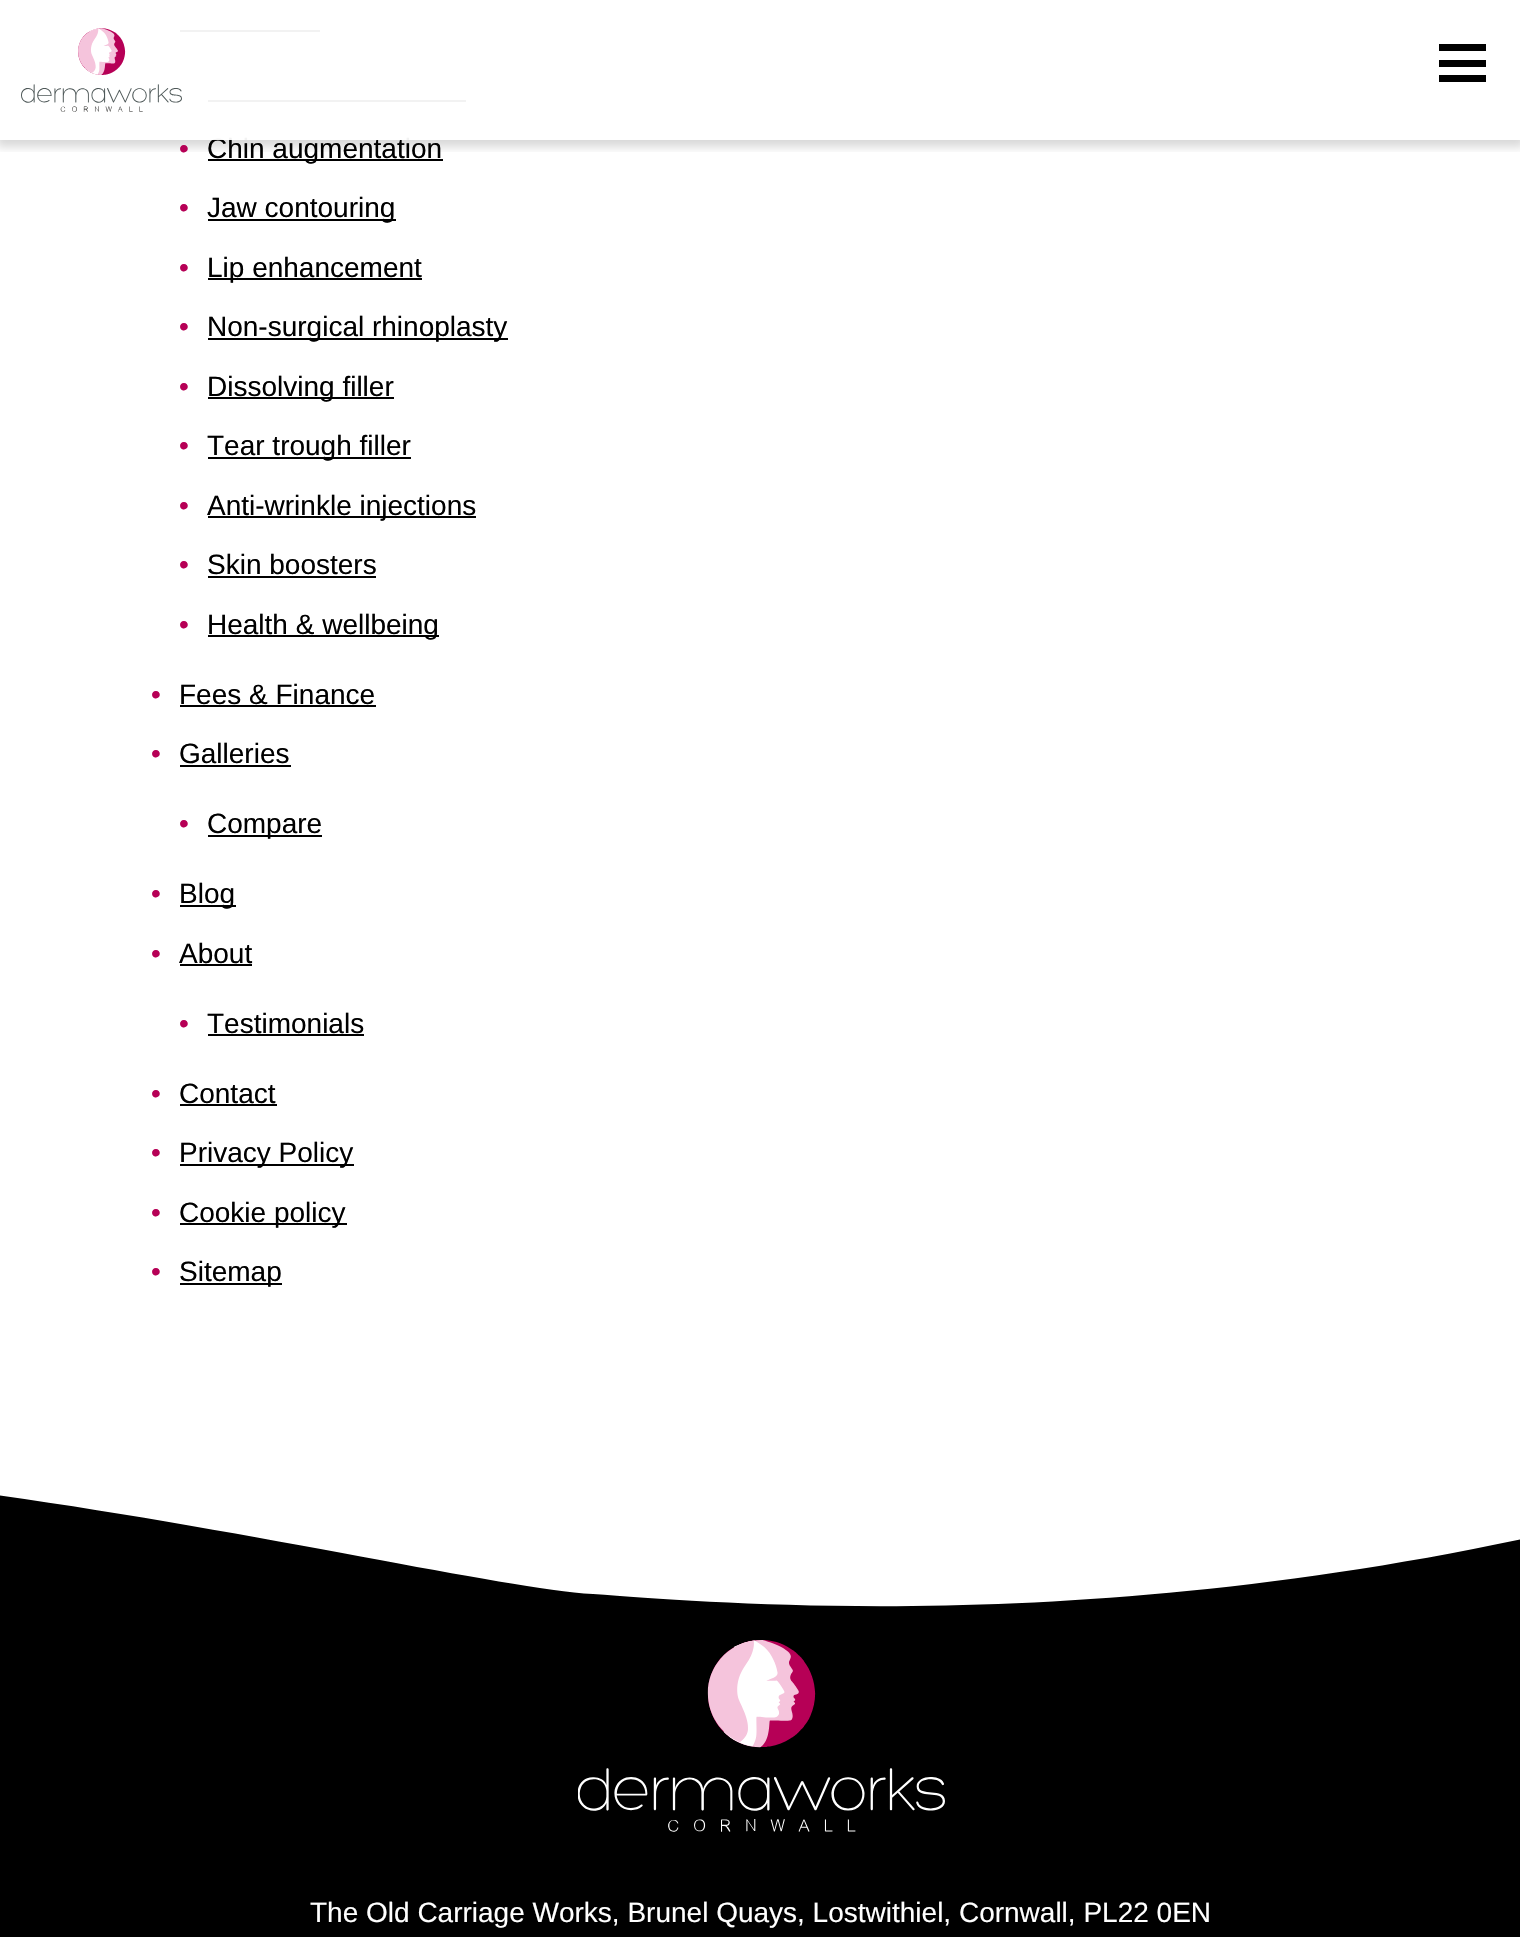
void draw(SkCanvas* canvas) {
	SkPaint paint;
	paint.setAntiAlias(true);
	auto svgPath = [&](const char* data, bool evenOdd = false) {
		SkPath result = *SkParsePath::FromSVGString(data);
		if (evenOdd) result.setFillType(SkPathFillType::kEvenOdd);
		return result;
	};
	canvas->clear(0xff000000);
	paint.setColor(0xffffffff);
	canvas->drawRect(SkRect::MakeXYWH(0, 0, 1520, 1607), paint);
	paint.setColor(0xff000000);
	canvas->drawRect(SkRect::MakeXYWH(180, 30, 140, 2), paint);
	canvas->drawRect(SkRect::MakeXYWH(208, 100, 258, 2), paint);
	canvas->drawRect(SkRect::MakeXYWH(208, 159, 235, 2), paint);
	canvas->save();
	canvas->clipRect(SkRect::MakeXYWH(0, 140, 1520, 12));
	paint.setColor(0x26000000);
	paint.setMaskFilter(SkMaskFilter::MakeBlur(kNormal_SkBlurStyle, 4.5));
	canvas->drawRect(SkRect::MakeXYWH(-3, 0, 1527, 147), paint);
	paint.setMaskFilter(nullptr);
	canvas->restore();
	SkFont f1(fontMgr->matchFamilyStyle("Liberation Sans", SkFontStyle::Normal()), 28);
	f1.setSubpixel(true);
	paint.setColor(0xff000000);
	canvas->drawString("Chin augmentation", 207, 158, f1, paint);
	paint.setColor(0xf2ffffff);
	canvas->drawRect(SkRect::MakeXYWH(180, 30, 286, 110), paint);
	canvas->drawImageRect(SkImages::DeferredFromEncodedData(SkData::MakeFromFileName("img1.png")), SkRect::MakeXYWH(21, 28, 161, 84), SkSamplingOptions());
	paint.setColor(0xff000000);
	canvas->drawRect(SkRect::MakeXYWH(1439, 44, 47, 7), paint);
	canvas->drawRect(SkRect::MakeXYWH(1439, 60, 47, 7), paint);
	canvas->drawRect(SkRect::MakeXYWH(1439, 75, 47, 7), paint);
	paint.setColor(0xffb60056);
	canvas->drawString("•", 179, 158, f1, paint);
	canvas->drawString("•", 179, 217, f1, paint);
	paint.setColor(0xff000000);
	canvas->drawRect(SkRect::MakeXYWH(208, 219, 188, 2), paint);
	canvas->drawString("Jaw contouring", 207, 217, f1, paint);
	paint.setColor(0xffb60056);
	canvas->drawString("•", 179, 277, f1, paint);
	paint.setColor(0xff000000);
	canvas->drawRect(SkRect::MakeXYWH(208, 278, 214, 2), paint);
	canvas->drawString("Lip enhancement", 207, 277, f1, paint);
	paint.setColor(0xffb60056);
	canvas->drawString("•", 179, 336, f1, paint);
	paint.setColor(0xff000000);
	canvas->drawRect(SkRect::MakeXYWH(208, 338, 300, 2), paint);
	canvas->drawString("Non-surgical rhinoplasty", 207, 336, f1, paint);
	paint.setColor(0xffb60056);
	canvas->drawString("•", 179, 396, f1, paint);
	paint.setColor(0xff000000);
	canvas->drawRect(SkRect::MakeXYWH(208, 397, 186, 2), paint);
	canvas->drawString("Dissolving filler", 207, 396, f1, paint);
	paint.setColor(0xffb60056);
	canvas->drawString("•", 179, 455, f1, paint);
	paint.setColor(0xff000000);
	canvas->drawRect(SkRect::MakeXYWH(208, 457, 203, 2), paint);
	canvas->drawString("Tear trough filler", 207, 455, f1, paint);
	paint.setColor(0xffb60056);
	canvas->drawString("•", 179, 515, f1, paint);
	paint.setColor(0xff000000);
	canvas->drawRect(SkRect::MakeXYWH(208, 516, 268, 2), paint);
	canvas->drawString("Anti-wrinkle injections", 207, 515, f1, paint);
	paint.setColor(0xffb60056);
	canvas->drawString("•", 179, 574, f1, paint);
	paint.setColor(0xff000000);
	canvas->drawString("Skin boosters", 207, 574, f1, paint);
	canvas->drawRect(SkRect::MakeXYWH(208, 576, 168, 2), paint);
	paint.setColor(0xffb60056);
	canvas->drawString("•", 179, 634, f1, paint);
	paint.setColor(0xff000000);
	canvas->drawRect(SkRect::MakeXYWH(208, 635, 231, 2), paint);
	canvas->drawString("Health & wellbeing", 207, 634, f1, paint);
	paint.setColor(0xffb60056);
	canvas->drawString("•", 151, 704, f1, paint);
	paint.setColor(0xff000000);
	canvas->drawString("Fees & Finance", 179, 704, f1, paint);
	canvas->drawRect(SkRect::MakeXYWH(180, 705, 196, 2), paint);
	paint.setColor(0xffb60056);
	canvas->drawString("•", 151, 763, f1, paint);
	paint.setColor(0xff000000);
	canvas->drawString("Galleries", 179, 763, f1, paint);
	canvas->drawRect(SkRect::MakeXYWH(180, 765, 111, 2), paint);
	paint.setColor(0xffb60056);
	canvas->drawString("•", 179, 833, f1, paint);
	paint.setColor(0xff000000);
	canvas->drawRect(SkRect::MakeXYWH(208, 835, 114, 2), paint);
	canvas->drawString("Compare", 207, 833, f1, paint);
	paint.setColor(0xffb60056);
	canvas->drawString("•", 151, 903, f1, paint);
	paint.setColor(0xff000000);
	canvas->drawRect(SkRect::MakeXYWH(180, 905, 56, 2), paint);
	canvas->drawString("Blog", 179, 903, f1, paint);
	paint.setColor(0xffb60056);
	canvas->drawString("•", 151, 963, f1, paint);
	paint.setColor(0xff000000);
	canvas->drawString("About", 179, 963, f1, paint);
	canvas->drawRect(SkRect::MakeXYWH(180, 964, 72, 2), paint);
	paint.setColor(0xffb60056);
	canvas->drawString("•", 179, 1033, f1, paint);
	paint.setColor(0xff000000);
	canvas->drawString("Testimonials", 207, 1033, f1, paint);
	canvas->drawRect(SkRect::MakeXYWH(208, 1034, 156, 2), paint);
	paint.setColor(0xffb60056);
	canvas->drawString("•", 151, 1103, f1, paint);
	paint.setColor(0xff000000);
	canvas->drawString("Contact", 179, 1103, f1, paint);
	canvas->drawRect(SkRect::MakeXYWH(180, 1104, 97, 2), paint);
	paint.setColor(0xffb60056);
	canvas->drawString("•", 151, 1162, f1, paint);
	paint.setColor(0xff000000);
	canvas->drawRect(SkRect::MakeXYWH(180, 1164, 174, 2), paint);
	canvas->drawString("Privacy Policy", 179, 1162, f1, paint);
	paint.setColor(0xffb60056);
	canvas->drawString("•", 151, 1222, f1, paint);
	paint.setColor(0xff000000);
	canvas->drawRect(SkRect::MakeXYWH(180, 1223, 167, 2), paint);
	canvas->drawString("Cookie policy", 179, 1222, f1, paint);
	paint.setColor(0xffb60056);
	canvas->drawString("•", 151, 1281, f1, paint);
	paint.setColor(0xff000000);
	canvas->drawRect(SkRect::MakeXYWH(180, 1283, 102, 2), paint);
	canvas->drawString("Sitemap", 179, 1281, f1, paint);
	canvas->drawPath(svgPath("M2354 1445C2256 1437 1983 1428 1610 1519C1122 1638 735 1604 593 1594C451 1585-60 1453-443 1463C-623 1468-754 1512-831 1552V1612H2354Z"), paint);
	canvas->drawImageRect(SkImages::DeferredFromEncodedData(SkData::MakeFromFileName("img2.png")), SkRect::MakeXYWH(578, 1640, 367, 192), SkSamplingOptions());
	paint.setColor(0xffffffff);
	canvas->drawString("The Old Carriage Works, Brunel Quays, Lostwithiel, Cornwall, PL22 0EN", 310, 1922, f1, paint);
}
